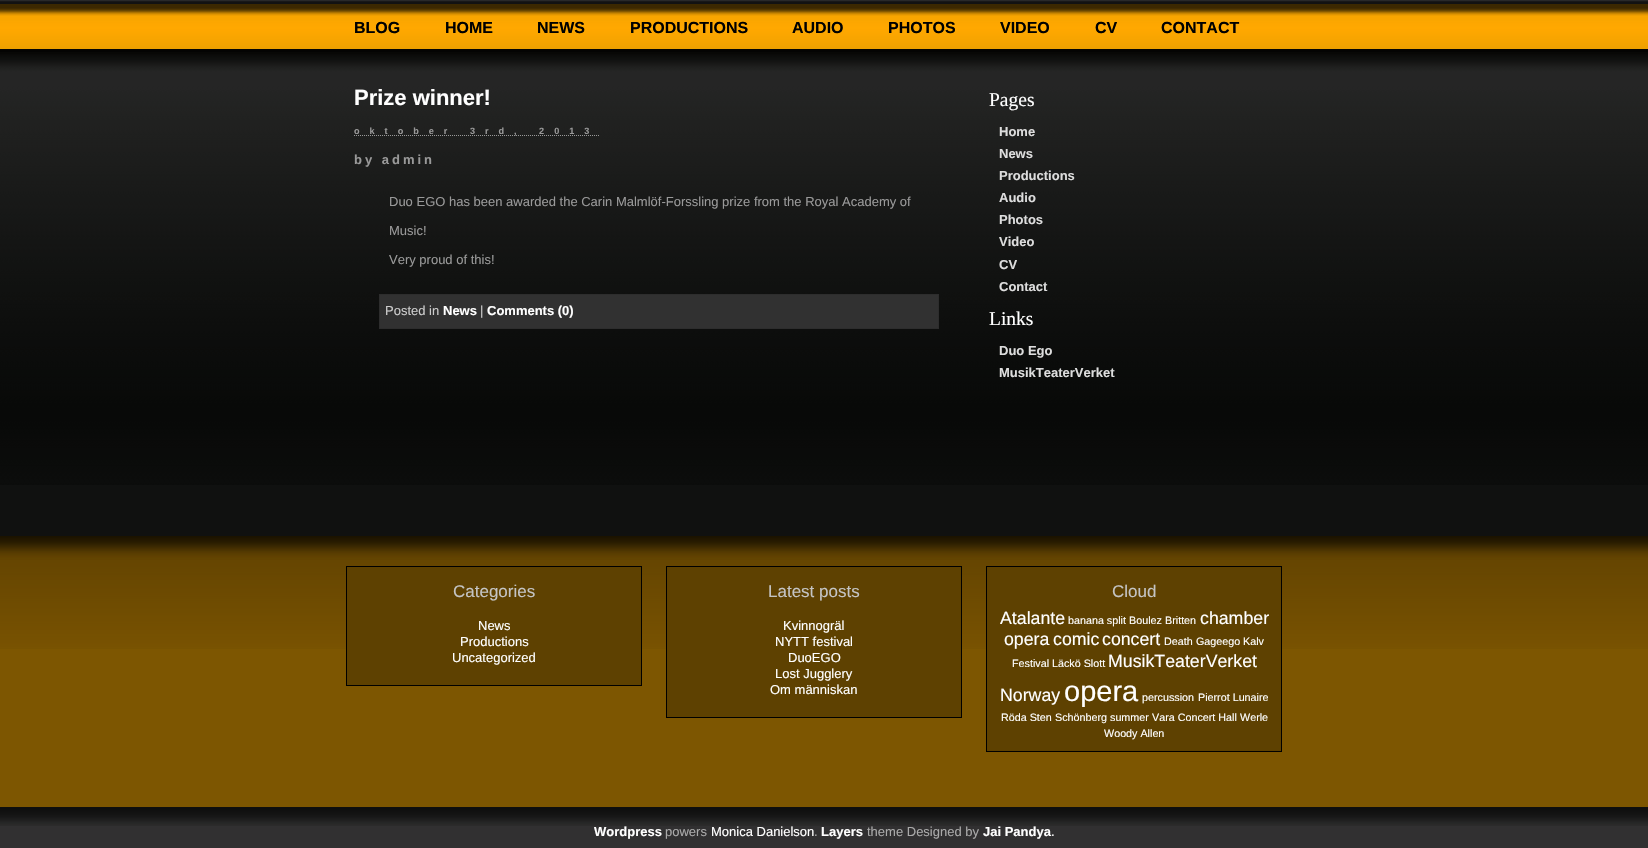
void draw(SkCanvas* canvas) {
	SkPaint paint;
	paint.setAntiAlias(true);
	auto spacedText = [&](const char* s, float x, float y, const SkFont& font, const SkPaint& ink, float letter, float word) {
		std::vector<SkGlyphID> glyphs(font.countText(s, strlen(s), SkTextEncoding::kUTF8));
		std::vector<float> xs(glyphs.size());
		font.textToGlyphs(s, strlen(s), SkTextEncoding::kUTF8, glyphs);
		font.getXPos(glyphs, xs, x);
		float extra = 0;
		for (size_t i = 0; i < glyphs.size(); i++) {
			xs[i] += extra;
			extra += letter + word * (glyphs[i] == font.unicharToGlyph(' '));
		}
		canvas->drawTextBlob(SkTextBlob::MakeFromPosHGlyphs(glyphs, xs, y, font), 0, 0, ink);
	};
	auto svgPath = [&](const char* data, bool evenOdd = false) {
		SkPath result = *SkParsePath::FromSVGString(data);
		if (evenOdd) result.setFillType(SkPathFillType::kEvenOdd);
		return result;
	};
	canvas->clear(0xff101110);
	canvas->drawImageRect(SkImages::DeferredFromEncodedData(SkData::MakeFromFileName("img1.png")), SkRect::MakeXYWH(0, 0, 1648, 49), SkSamplingOptions());
	SkFont f1(fontMgr->matchFamilyStyle("Liberation Sans", SkFontStyle::Bold()), 16);
	f1.setSubpixel(true);
	paint.setColor(0xff000000);
	canvas->drawString("BLOG", 354, 33, f1, paint);
	canvas->drawString("HOME", 445, 33, f1, paint);
	canvas->drawString("NEWS", 537, 33, f1, paint);
	canvas->drawString("PRODUCTIONS", 630, 33, f1, paint);
	canvas->drawString("AUDIO", 792, 33, f1, paint);
	canvas->drawString("PHOTOS", 888, 33, f1, paint);
	canvas->drawString("VIDEO", 1000, 33, f1, paint);
	canvas->drawString("CV", 1095, 33, f1, paint);
	canvas->drawString("CONTACT", 1161, 33, f1, paint);
	canvas->drawImageRect(SkImages::DeferredFromEncodedData(SkData::MakeFromFileName("img2.png")), SkRect::MakeXYWH(0, 49, 1648, 436), SkSamplingOptions());
	SkFont f2(fontMgr->matchFamilyStyle("Liberation Sans", SkFontStyle::Bold()), 22);
	f2.setSubpixel(true);
	paint.setColor(0xffffffff);
	canvas->drawString("Prize winner!", 354, 105, f2, paint);
	paint.setStroke(true);
	paint.setStrokeWidth(1);
	paint.setColor(0xff999999);
	paint.setPathEffect(SkDashPathEffect::Make({{1, 1}}, 0));
	canvas->drawPath(svgPath("M354 135.5H599.5"), paint);
	paint.setPathEffect(nullptr);
	SkFont f3(fontMgr->matchFamilyStyle("Liberation Sans", SkFontStyle::Bold()), 9.1);
	f3.setSubpixel(true);
	paint.setStroke(false);
	spacedText("oktober 3rd, 2013", 354, 134, f3, paint, 10, 0);
	SkFont f4(fontMgr->matchFamilyStyle("Liberation Sans", SkFontStyle::Bold()), 13);
	f4.setSubpixel(true);
	spacedText("by admin", 354, 164, f4, paint, 3, 0);
	SkFont f5(fontMgr->matchFamilyStyle("Liberation Sans", SkFontStyle::Normal()), 13);
	f5.setSubpixel(true);
	canvas->drawString("Duo EGO has been awarded the Carin Malmlöf-Forssling prize from the Royal Academy of", 389, 206, f5, paint);
	canvas->drawString("Music!", 389, 235, f5, paint);
	canvas->drawString("Very proud of this!", 389, 264, f5, paint);
	paint.setColor(0xff313131);
	canvas->drawRect(SkRect::MakeXYWH(379.5, 294.5, 559, 34), paint);
	paint.setStroke(true);
	paint.setColor(0xff2d2d2d);
	canvas->drawRect(SkRect::MakeXYWH(379.5, 294.5, 559, 34), paint);
	paint.setStroke(false);
	paint.setColor(0xffcccccc);
	canvas->drawString("Posted in", 385, 315, f5, paint);
	paint.setColor(0xffffffff);
	canvas->drawString("News", 443, 315, f4, paint);
	paint.setColor(0xffcccccc);
	canvas->drawString("|", 480, 315, f5, paint);
	paint.setColor(0xffffffff);
	canvas->drawString("Comments (0)", 487, 315, f4, paint);
	SkFont f6(fontMgr->matchFamilyStyle("Liberation Serif", SkFontStyle::Normal()), 19.5);
	f6.setSubpixel(true);
	canvas->drawString("Pages", 989, 106, f6, paint);
	paint.setColor(0xffdddddd);
	canvas->drawString("Home", 999, 136, f4, paint);
	canvas->drawString("News", 999, 158, f4, paint);
	canvas->drawString("Productions", 999, 180, f4, paint);
	canvas->drawString("Audio", 999, 202, f4, paint);
	canvas->drawString("Photos", 999, 224, f4, paint);
	canvas->drawString("Video", 999, 246, f4, paint);
	canvas->drawString("CV", 999, 269, f4, paint);
	canvas->drawString("Contact", 999, 291, f4, paint);
	paint.setColor(0xffffffff);
	canvas->drawString("Links", 989, 325, f6, paint);
	paint.setColor(0xffdddddd);
	canvas->drawString("Duo Ego", 999, 355, f4, paint);
	canvas->drawString("MusikTeaterVerket", 999, 377, f4, paint);
	paint.setColor(0xff7d5601);
	canvas->drawRect(SkRect::MakeXYWH(0, 649, 1648, 158), paint);
	canvas->drawImageRect(SkImages::DeferredFromEncodedData(SkData::MakeFromFileName("img3.png")), SkRect::MakeXYWH(0, 536, 1648, 113), SkSamplingOptions());
	paint.setColor(0xff5e4101);
	canvas->drawRect(SkRect::MakeXYWH(346.5, 566.5, 295, 119), paint);
	paint.setStroke(true);
	paint.setColor(0xff000000);
	canvas->drawRect(SkRect::MakeXYWH(346.5, 566.5, 295, 119), paint);
	SkFont f7(fontMgr->matchFamilyStyle("Liberation Sans", SkFontStyle::Normal()), 17);
	f7.setSubpixel(true);
	paint.setStroke(false);
	paint.setColor(0xffc4c4c4);
	canvas->drawString("Categories", 453, 597, f7, paint);
	paint.setColor(0xffffffff);
	canvas->drawString("News", 478, 630, f5, paint);
	canvas->drawString("Productions", 460, 646, f5, paint);
	canvas->drawString("Uncategorized", 452, 662, f5, paint);
	paint.setColor(0xff5e4101);
	canvas->drawRect(SkRect::MakeXYWH(666.5, 566.5, 295, 151), paint);
	paint.setStroke(true);
	paint.setColor(0xff000000);
	canvas->drawRect(SkRect::MakeXYWH(666.5, 566.5, 295, 151), paint);
	paint.setStroke(false);
	paint.setColor(0xffc4c4c4);
	canvas->drawString("Latest posts", 768, 597, f7, paint);
	paint.setColor(0xffffffff);
	canvas->drawString("Kvinnogräl", 783, 630, f5, paint);
	canvas->drawString("NYTT festival", 775, 646, f5, paint);
	canvas->drawString("DuoEGO", 788, 662, f5, paint);
	canvas->drawString("Lost Jugglery", 775, 678, f5, paint);
	canvas->drawString("Om människan", 770, 694, f5, paint);
	paint.setColor(0xff5e4101);
	canvas->drawRect(SkRect::MakeXYWH(986.5, 566.5, 295, 185), paint);
	paint.setStroke(true);
	paint.setColor(0xff000000);
	canvas->drawRect(SkRect::MakeXYWH(986.5, 566.5, 295, 185), paint);
	paint.setStroke(false);
	paint.setColor(0xffc4c4c4);
	canvas->drawString("Cloud", 1112, 597, f7, paint);
	SkFont f8(fontMgr->matchFamilyStyle("Liberation Sans", SkFontStyle::Normal()), 17.75);
	f8.setSubpixel(true);
	paint.setColor(0xffffffff);
	canvas->drawString("Atalante", 1000, 624, f8, paint);
	SkFont f9(fontMgr->matchFamilyStyle("Liberation Sans", SkFontStyle::Normal()), 10.75);
	f9.setSubpixel(true);
	canvas->drawString("banana split", 1068, 624, f9, paint);
	canvas->drawString("Boulez", 1129, 624, f9, paint);
	canvas->drawString("Britten", 1165, 624, f9, paint);
	canvas->drawString("chamber", 1200, 624, f8, paint);
	canvas->drawString("opera", 1004, 645, f8, paint);
	canvas->drawString("comic", 1053, 645, f8, paint);
	canvas->drawString("concert", 1102, 645, f8, paint);
	canvas->drawString("Death", 1164, 645, f9, paint);
	canvas->drawString("Gageego", 1196, 645, f9, paint);
	canvas->drawString("Kalv", 1243, 645, f9, paint);
	canvas->drawString("Festival", 1012, 667, f9, paint);
	canvas->drawString("Läckö Slott", 1052, 667, f9, paint);
	canvas->drawString("MusikTeaterVerket", 1108, 667, f8, paint);
	canvas->drawString("Norway", 1000, 701, f8, paint);
	SkFont f10(fontMgr->matchFamilyStyle("Liberation Sans", SkFontStyle::Normal()), 29);
	f10.setSubpixel(true);
	canvas->drawString("opera", 1064, 701, f10, paint);
	canvas->drawString("percussion", 1142, 701, f9, paint);
	canvas->drawString("Pierrot Lunaire", 1198, 701, f9, paint);
	canvas->drawString("Röda Sten", 1001, 721, f9, paint);
	canvas->drawString("Schönberg", 1055, 721, f9, paint);
	canvas->drawString("summer", 1110, 721, f9, paint);
	canvas->drawString("Vara Concert Hall", 1152, 721, f9, paint);
	canvas->drawString("Werle", 1240, 721, f9, paint);
	canvas->drawString("Woody Allen", 1104, 737, f9, paint);
	paint.setColor(0xff313031);
	canvas->drawRect(SkRect::MakeXYWH(0, 826, 1648, 22), paint);
	canvas->drawImageRect(SkImages::DeferredFromEncodedData(SkData::MakeFromFileName("img4.png")), SkRect::MakeXYWH(0, 807, 1648, 19), SkSamplingOptions());
	paint.setColor(0xffffffff);
	canvas->drawString("Wordpress", 594, 836, f4, paint);
	paint.setColor(0xffaaaaaa);
	canvas->drawString("powers", 665, 836, f5, paint);
	paint.setColor(0xffffffff);
	canvas->drawString("Monica Danielson", 711, 836, f5, paint);
	paint.setColor(0xffaaaaaa);
	canvas->drawString(".", 814, 836, f5, paint);
	paint.setColor(0xffffffff);
	canvas->drawString("Layers", 821, 836, f4, paint);
	paint.setColor(0xffaaaaaa);
	canvas->drawString("theme Designed by", 867, 836, f5, paint);
	paint.setColor(0xffffffff);
	canvas->drawString("Jai Pandya", 983, 836, f4, paint);
	canvas->drawString(".", 1051, 836, f5, paint);
}
